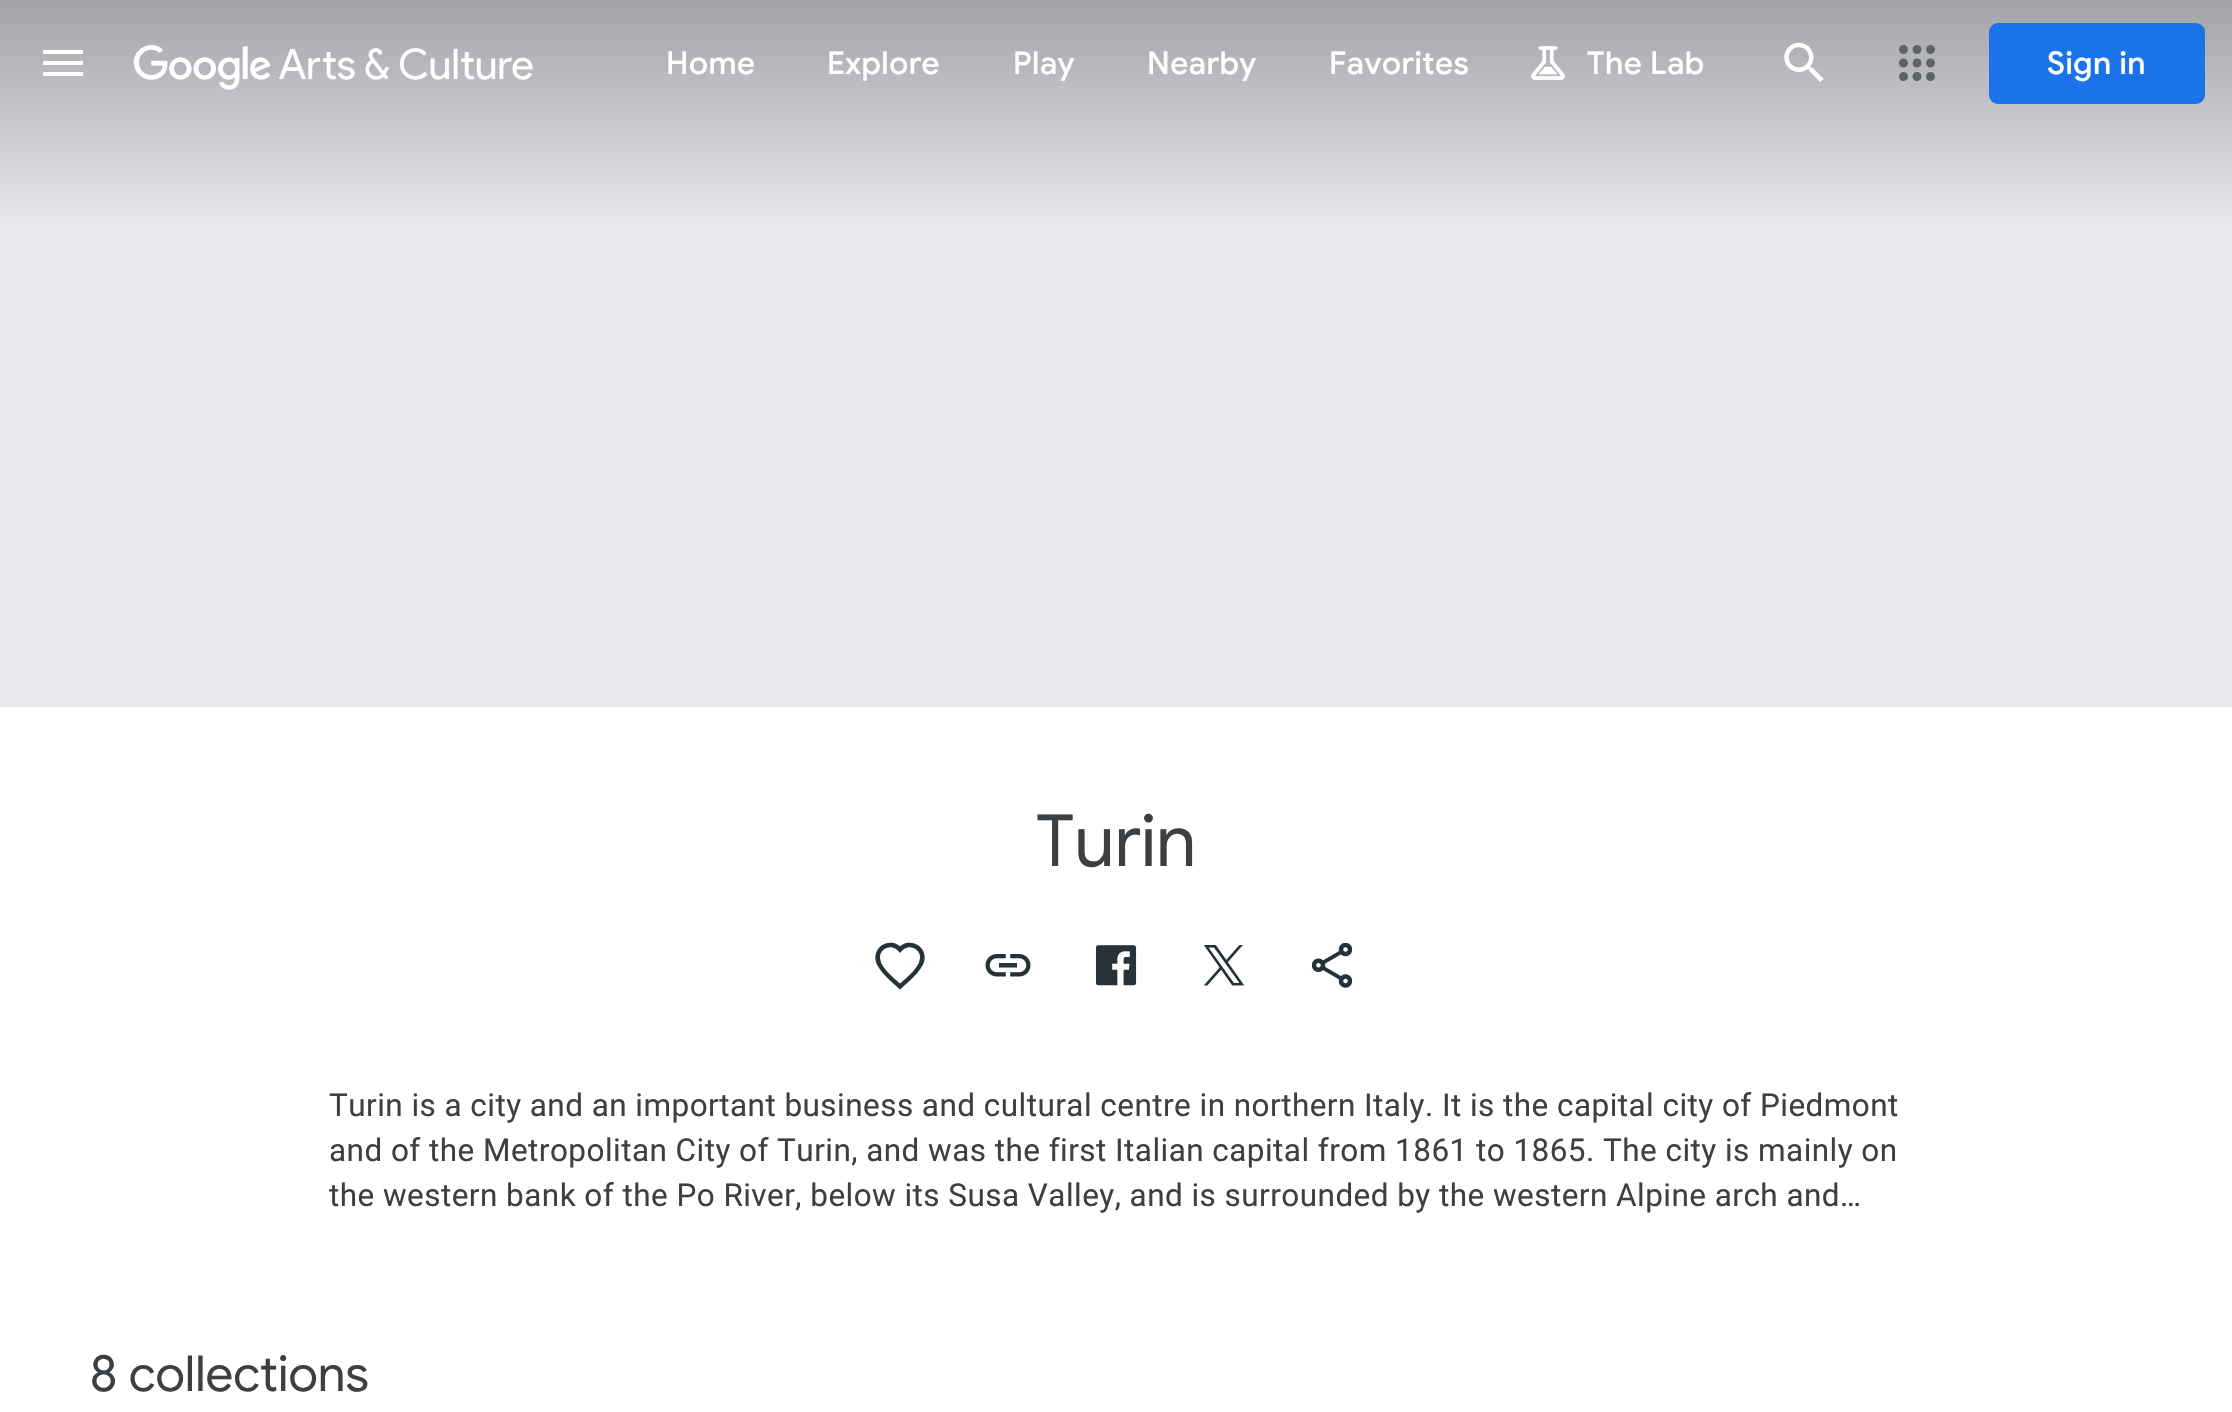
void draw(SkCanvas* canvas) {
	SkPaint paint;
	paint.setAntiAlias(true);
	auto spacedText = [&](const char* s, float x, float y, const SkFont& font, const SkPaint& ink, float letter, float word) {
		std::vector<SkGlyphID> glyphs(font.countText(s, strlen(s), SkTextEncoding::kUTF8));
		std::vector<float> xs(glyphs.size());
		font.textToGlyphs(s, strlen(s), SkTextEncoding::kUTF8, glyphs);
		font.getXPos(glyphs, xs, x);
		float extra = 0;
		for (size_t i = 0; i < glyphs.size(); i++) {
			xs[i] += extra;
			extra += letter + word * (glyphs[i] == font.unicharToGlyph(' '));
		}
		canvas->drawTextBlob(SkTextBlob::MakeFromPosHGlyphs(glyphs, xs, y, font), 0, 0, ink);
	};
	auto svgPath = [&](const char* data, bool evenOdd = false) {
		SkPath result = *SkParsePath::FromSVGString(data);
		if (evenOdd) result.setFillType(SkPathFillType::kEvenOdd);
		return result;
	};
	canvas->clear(0xffffffff);
	{
		const SkColor colors[] = {0xffa2a3a7, 0xffe8e9ee};
		const float stops[] = {0, 1};
		const SkPoint ends[] = {{1116, 0}, {1116, 225}};
		paint.setShader(SkGradientShader::MakeLinear(ends, colors, stops, 2, SkTileMode::kClamp));
		paint.setAlpha(255);
	}
	canvas->drawRect(SkRect::MakeXYWH(0, 0, 2232, 225), paint);
	paint.setShader(nullptr);
	paint.setColor(0xffffffff);
	canvas->drawPath(svgPath("M43 76H83V72H43ZM43 65H83V61H43ZM43 50V54H83V50Z"), paint);
	canvas->drawImageRect(SkImages::DeferredFromEncodedData(SkData::MakeFromFileName("img1.png")), SkRect::MakeXYWH(133, 45, 400, 45), SkSamplingOptions());
	SkFont f1(fontMgr->matchFamilyStyle("Google Sans", SkFontStyle(500, SkFontStyle::kNormal_Width, SkFontStyle::kUpright_Slant)), 31.5);
	f1.setSubpixel(true);
	spacedText("Home", 666, 74, f1, paint, 0.5, 0);
	spacedText("Explore", 827, 74, f1, paint, 0.5, 0);
	spacedText("Play", 1013, 74, f1, paint, 0.5, 0);
	spacedText("Nearby", 1147, 74, f1, paint, 0.5, 0);
	spacedText("Favorites", 1329, 74, f1, paint, 0.5, 0);
	canvas->drawImageRect(SkImages::DeferredFromEncodedData(SkData::MakeFromFileName("img2.png")), SkRect::MakeXYWH(1531, 46, 34, 34), SkSamplingOptions());
	spacedText("The Lab", 1587, 74, f1, paint, 0.5, 0);
	canvas->drawImageRect(SkImages::DeferredFromEncodedData(SkData::MakeFromFileName("img3.png")), SkRect::MakeXYWH(1784, 42, 40, 40), SkSamplingOptions());
	canvas->drawImageRect(SkImages::DeferredFromEncodedData(SkData::MakeFromFileName("img4.png")), SkRect::MakeXYWH(1899, 45, 36, 36), SkSamplingOptions());
	paint.setColor(0xff1a73e8);
	canvas->drawRoundRect(SkRect::MakeXYWH(1989, 23, 216, 81), 9, 9, paint);
	paint.setColor(0xffffffff);
	spacedText("Sign in", 2047, 74, f1, paint, 0.5, 0);
	paint.setColor(0xffe8eaed);
	canvas->drawRect(SkRect::MakeXYWH(0, 225, 2232, 482), paint);
	SkFont f2(fontMgr->matchFamilyStyle("Google Sans", SkFontStyle::Normal()), 72);
	f2.setSubpixel(true);
	paint.setColor(0xff3c4043);
	canvas->drawString("Turin", 1036, 866, f2, paint);
	paint.setStroke(true);
	paint.setStrokeWidth(4.5);
	paint.setColor(0xff263238);
	canvas->drawPath(svgPath("M900 986.5C892.5 979.5 883 973 879 963.5C872.5 949 890.5 938.5 900 949.5C909.5 938.5 927.5 949 921 963.5C917 973 907.5 979.5 900 986.5Z"), paint);
	canvas->drawImageRect(SkImages::DeferredFromEncodedData(SkData::MakeFromFileName("img5.png")), SkRect::MakeXYWH(985, 954, 46, 23), SkSamplingOptions());
	canvas->drawImageRect(SkImages::DeferredFromEncodedData(SkData::MakeFromFileName("img6.png")), SkRect::MakeXYWH(1095, 945, 42, 41), SkSamplingOptions());
	canvas->drawImageRect(SkImages::DeferredFromEncodedData(SkData::MakeFromFileName("img7.png")), SkRect::MakeXYWH(1203, 945, 42, 41), SkSamplingOptions());
	canvas->drawImageRect(SkImages::DeferredFromEncodedData(SkData::MakeFromFileName("img8.png")), SkRect::MakeXYWH(1312, 943, 40, 45), SkSamplingOptions());
	SkFont f3(fontMgr->matchFamilyStyle("Roboto", SkFontStyle::Normal()), 31.5);
	f3.setSubpixel(true);
	paint.setStroke(false);
	paint.setColor(0xff3c4043);
	spacedText("Turin is a city and an important business and cultural centre in northern Italy. It is the capital city of Piedmont", 329, 1116, f3, paint, 0.45, 0);
	spacedText("and of the Metropolitan City of Turin, and was the first Italian capital from 1861 to 1865. The city is mainly on", 329, 1161, f3, paint, 0.45, 0);
	canvas->save();
	canvas->clipRect(SkRect::MakeXYWH(329, 1082, 1575, 135));
	spacedText("the western bank of the Po River, below its Susa Valley, and is surrounded by the western Alpine arch and…", 329, 1206, f3, paint, 0.45, 0);
	canvas->restore();
	SkFont f4(fontMgr->matchFamilyStyle("Google Sans", SkFontStyle::Normal()), 49.5);
	f4.setSubpixel(true);
	canvas->drawString("8 collections", 90, 1391, f4, paint);
}
